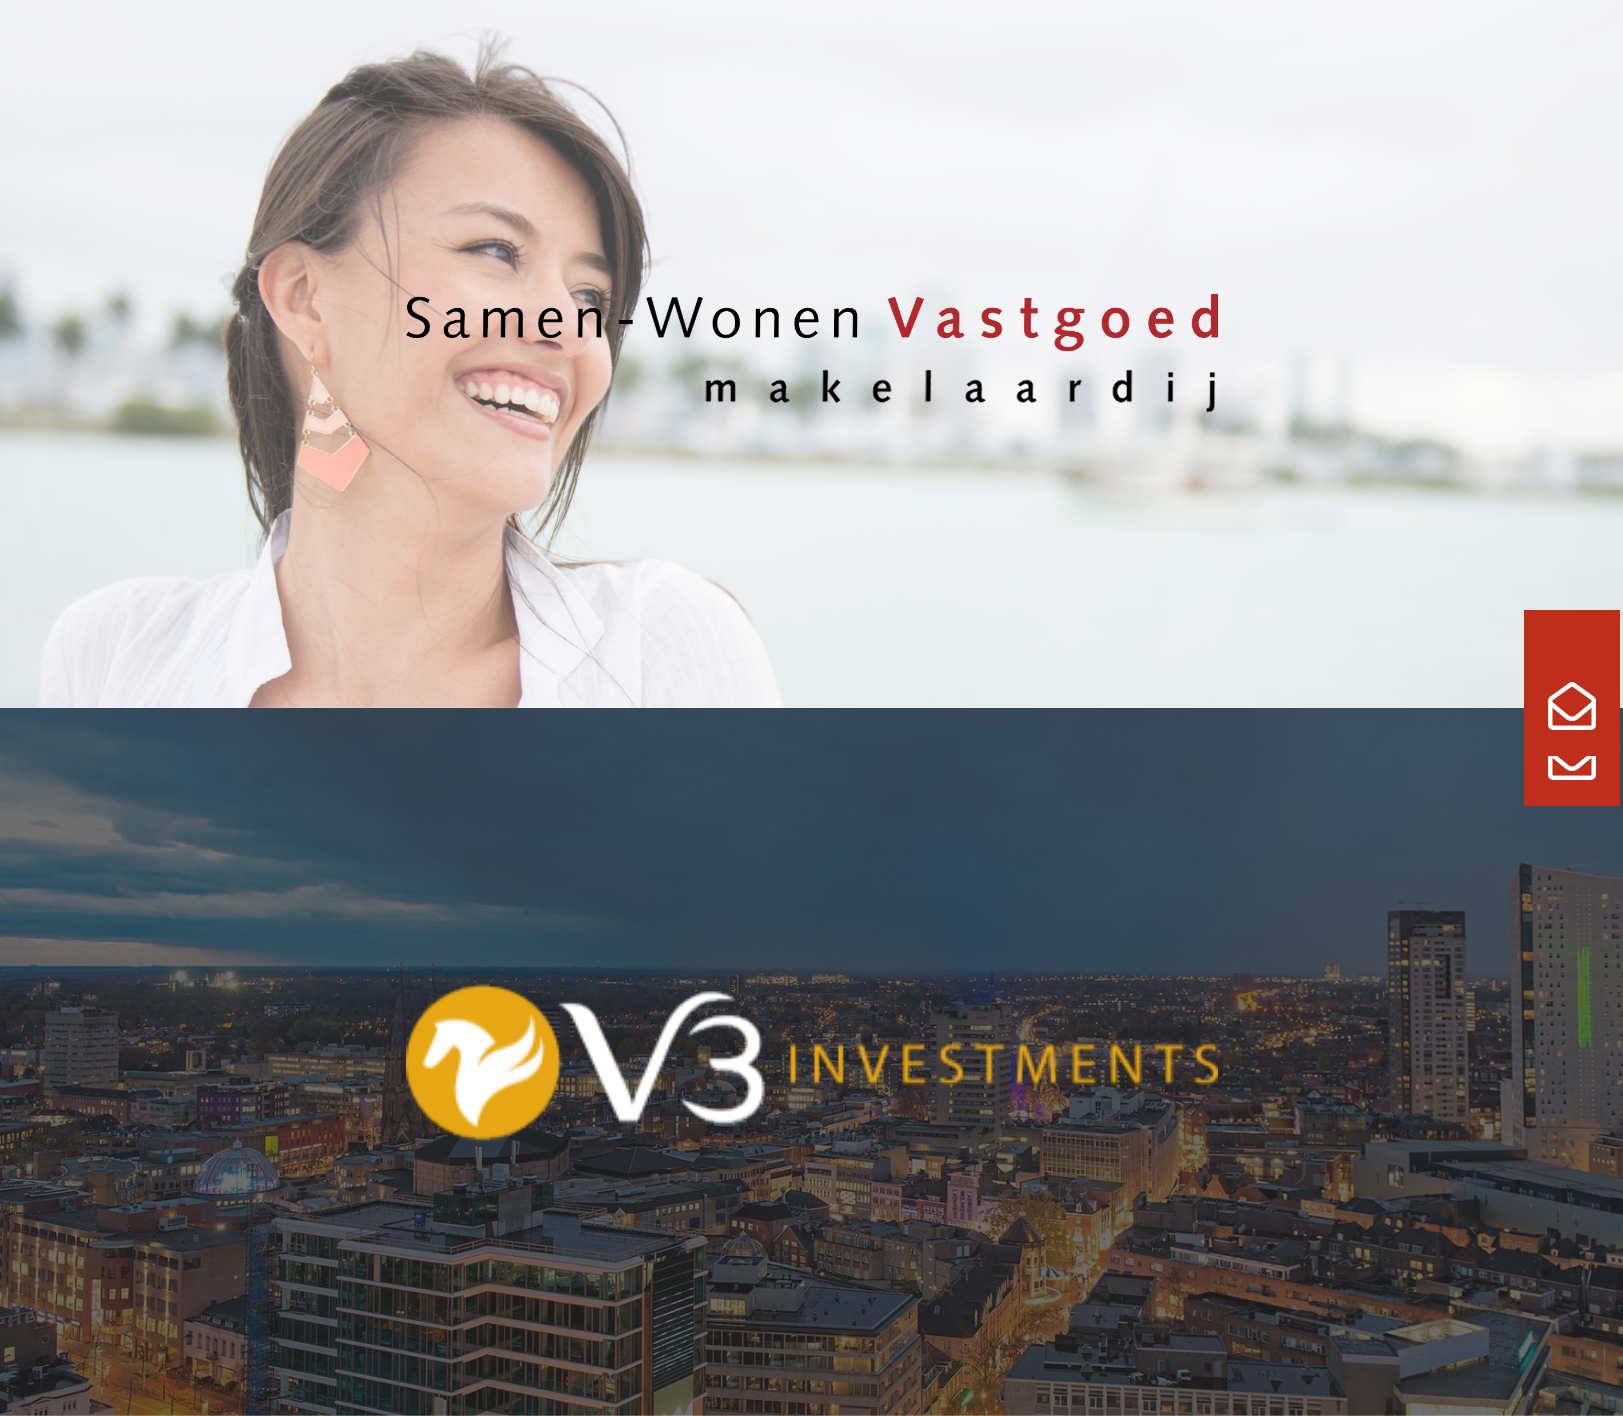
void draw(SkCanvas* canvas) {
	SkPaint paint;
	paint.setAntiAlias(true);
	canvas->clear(0xffffffff);
	canvas->drawImageRect(SkImages::DeferredFromEncodedData(SkData::MakeFromFileName("img7.png")), SkRect::MakeXYWH(45, 707, 1578, 709), SkSamplingOptions());
	canvas->drawImageRect(SkImages::DeferredFromEncodedData(SkData::MakeFromFileName("img1.png")), SkRect::MakeXYWH(0, 0, 1623, 708), SkSamplingOptions());
	paint.setColor(0x4affffff);
	canvas->drawRect(SkRect::MakeXYWH(0, 0, 1623, 708), paint);
	canvas->drawImageRect(SkImages::DeferredFromEncodedData(SkData::MakeFromFileName("img2.png")), SkRect::MakeXYWH(406, 294, 812, 119), SkSamplingOptions());
	canvas->drawImageRect(SkImages::DeferredFromEncodedData(SkData::MakeFromFileName("img3.png")), SkRect::MakeXYWH(0, 708, 1623, 708), SkSamplingOptions());
	canvas->drawImageRect(SkImages::DeferredFromEncodedData(SkData::MakeFromFileName("img4.png")), SkRect::MakeXYWH(406, 983, 812, 159), SkSamplingOptions());
	paint.setColor(0xffbf2e1a);
	canvas->drawRect(SkRect::MakeXYWH(1524, 610, 96, 50), paint);
	canvas->drawRect(SkRect::MakeXYWH(1524, 660, 96, 146), paint);
	canvas->drawImageRect(SkImages::DeferredFromEncodedData(SkData::MakeFromFileName("img5.png")), SkRect::MakeXYWH(1548, 756, 48, 24), SkSamplingOptions());
	canvas->drawImageRect(SkImages::DeferredFromEncodedData(SkData::MakeFromFileName("img6.png")), SkRect::MakeXYWH(1548, 682, 48, 48), SkSamplingOptions());
}
